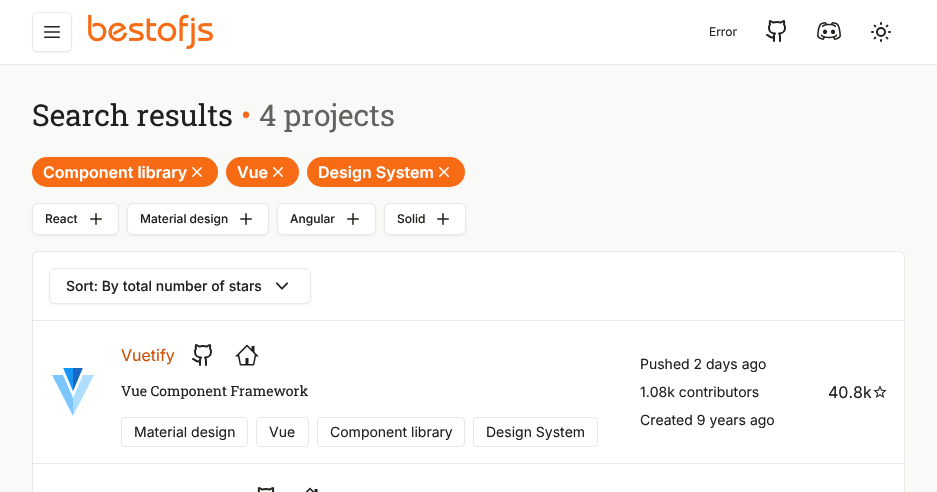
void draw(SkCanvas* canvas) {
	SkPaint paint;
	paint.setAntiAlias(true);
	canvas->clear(0xffffffff);
	paint.setColor(0xffe9e8e6);
	canvas->drawRect(SkRect::MakeXYWH(0, 64, 937, 1), paint);
	paint.setColor(0x0d000000);
	paint.setMaskFilter(SkMaskFilter::MakeBlur(kNormal_SkBlurStyle, 1));
	canvas->drawRoundRect(SkRect::MakeXYWH(32, 13, 40, 40), 6, 6, paint);
	paint.setMaskFilter(nullptr);
	paint.setColor(0xffffffff);
	canvas->drawRoundRect(SkRect::MakeXYWH(32.5, 12.5, 39, 39), 5.5, 5.5, paint);
	paint.setStroke(true);
	paint.setStrokeWidth(1);
	paint.setColor(0xffe9e8e6);
	canvas->drawRoundRect(SkRect::MakeXYWH(32.5, 12.5, 39, 39), 5.5, 5.5, paint);
	canvas->drawImageRect(SkImages::DeferredFromEncodedData(SkData::MakeFromFileName("img1.png")), SkRect::MakeXYWH(44, 26, 16, 12), SkSamplingOptions());
	canvas->drawImageRect(SkImages::DeferredFromEncodedData(SkData::MakeFromFileName("img2.png")), SkRect::MakeXYWH(88, 14, 125, 35), SkSamplingOptions());
	SkFont f1(fontMgr->matchFamilyStyle("Inter", SkFontStyle::Normal()), 12);
	f1.setSubpixel(true);
	paint.setStroke(false);
	paint.setColor(0xff21201c);
	canvas->drawString("Error", 709, 36, f1, paint);
	canvas->drawImageRect(SkImages::DeferredFromEncodedData(SkData::MakeFromFileName("img3.png")), SkRect::MakeXYWH(766, 20, 20, 22), SkSamplingOptions());
	canvas->drawImageRect(SkImages::DeferredFromEncodedData(SkData::MakeFromFileName("img4.png")), SkRect::MakeXYWH(817, 22, 24, 18), SkSamplingOptions());
	canvas->drawImageRect(SkImages::DeferredFromEncodedData(SkData::MakeFromFileName("img5.png")), SkRect::MakeXYWH(871, 22, 20, 20), SkSamplingOptions());
	paint.setColor(0xfff9f9f8);
	canvas->drawRect(SkRect::MakeXYWH(0, 65, 937, 427), paint);
	SkFont f2(fontMgr->matchFamilyStyle("Roboto Slab", SkFontStyle::Normal()), 30);
	f2.setSubpixel(true);
	paint.setColor(0xff21201c);
	canvas->drawString("Search results", 32, 126, f2, paint);
	paint.setColor(0xfff76b15);
	canvas->drawString("•", 241, 126, f2, paint);
	paint.setColor(0xff63635e);
	canvas->drawString("4 projects", 259, 126, f2, paint);
	paint.setColor(0xfff76b15);
	canvas->drawRoundRect(SkRect::MakeXYWH(32, 157, 186, 30), 15, 15, paint);
	SkFont f3(fontMgr->matchFamilyStyle("Inter", SkFontStyle(600, SkFontStyle::kNormal_Width, SkFontStyle::kUpright_Slant)), 16);
	f3.setSubpixel(true);
	paint.setColor(0xffffffff);
	canvas->drawString("Component library", 43, 178, f3, paint);
	canvas->drawImageRect(SkImages::DeferredFromEncodedData(SkData::MakeFromFileName("img6.png")), SkRect::MakeXYWH(192, 167, 10, 10), SkSamplingOptions());
	paint.setColor(0xfff76b15);
	canvas->drawRoundRect(SkRect::MakeXYWH(226, 157, 73, 30), 15, 15, paint);
	paint.setColor(0xffffffff);
	canvas->drawString("Vue", 237, 178, f3, paint);
	canvas->drawImageRect(SkImages::DeferredFromEncodedData(SkData::MakeFromFileName("img6.png")), SkRect::MakeXYWH(273, 167, 10, 10), SkSamplingOptions());
	paint.setColor(0xfff76b15);
	canvas->drawRoundRect(SkRect::MakeXYWH(307, 157, 158, 30), 15, 15, paint);
	paint.setColor(0xffffffff);
	canvas->drawString("Design System", 318, 178, f3, paint);
	canvas->drawImageRect(SkImages::DeferredFromEncodedData(SkData::MakeFromFileName("img6.png")), SkRect::MakeXYWH(439, 167, 10, 10), SkSamplingOptions());
	paint.setColor(0x0d000000);
	paint.setMaskFilter(SkMaskFilter::MakeBlur(kNormal_SkBlurStyle, 1));
	canvas->drawRoundRect(SkRect::MakeXYWH(32, 204, 87, 32), 6, 6, paint);
	paint.setMaskFilter(nullptr);
	paint.setColor(0xffffffff);
	canvas->drawRoundRect(SkRect::MakeXYWH(32.5, 203.5, 86, 31), 5.5, 5.5, paint);
	paint.setStroke(true);
	paint.setColor(0xffe9e8e6);
	canvas->drawRoundRect(SkRect::MakeXYWH(32.5, 203.5, 86, 31), 5.5, 5.5, paint);
	SkFont f4(fontMgr->matchFamilyStyle("Inter", SkFontStyle(500, SkFontStyle::kNormal_Width, SkFontStyle::kUpright_Slant)), 12);
	f4.setSubpixel(true);
	paint.setStroke(false);
	paint.setColor(0xff21201c);
	canvas->drawString("React", 45, 223, f4, paint);
	canvas->drawImageRect(SkImages::DeferredFromEncodedData(SkData::MakeFromFileName("img7.png")), SkRect::MakeXYWH(90, 213, 12, 12), SkSamplingOptions());
	paint.setColor(0x0d000000);
	paint.setMaskFilter(SkMaskFilter::MakeBlur(kNormal_SkBlurStyle, 1));
	canvas->drawRoundRect(SkRect::MakeXYWH(127, 204, 142, 32), 6, 6, paint);
	paint.setMaskFilter(nullptr);
	paint.setColor(0xffffffff);
	canvas->drawRoundRect(SkRect::MakeXYWH(127.5, 203.5, 141, 31), 5.5, 5.5, paint);
	paint.setStroke(true);
	paint.setColor(0xffe9e8e6);
	canvas->drawRoundRect(SkRect::MakeXYWH(127.5, 203.5, 141, 31), 5.5, 5.5, paint);
	paint.setStroke(false);
	paint.setColor(0xff21201c);
	canvas->drawString("Material design", 140, 223, f4, paint);
	canvas->drawImageRect(SkImages::DeferredFromEncodedData(SkData::MakeFromFileName("img7.png")), SkRect::MakeXYWH(240, 213, 12, 12), SkSamplingOptions());
	paint.setColor(0x0d000000);
	paint.setMaskFilter(SkMaskFilter::MakeBlur(kNormal_SkBlurStyle, 1));
	canvas->drawRoundRect(SkRect::MakeXYWH(277, 204, 99, 32), 6, 6, paint);
	paint.setMaskFilter(nullptr);
	paint.setColor(0xffffffff);
	canvas->drawRoundRect(SkRect::MakeXYWH(277.5, 203.5, 98, 31), 5.5, 5.5, paint);
	paint.setStroke(true);
	paint.setColor(0xffe9e8e6);
	canvas->drawRoundRect(SkRect::MakeXYWH(277.5, 203.5, 98, 31), 5.5, 5.5, paint);
	paint.setStroke(false);
	paint.setColor(0xff21201c);
	canvas->drawString("Angular", 290, 223, f4, paint);
	canvas->drawImageRect(SkImages::DeferredFromEncodedData(SkData::MakeFromFileName("img7.png")), SkRect::MakeXYWH(347, 213, 12, 12), SkSamplingOptions());
	paint.setColor(0x0d000000);
	paint.setMaskFilter(SkMaskFilter::MakeBlur(kNormal_SkBlurStyle, 1));
	canvas->drawRoundRect(SkRect::MakeXYWH(384, 204, 82, 32), 6, 6, paint);
	paint.setMaskFilter(nullptr);
	paint.setColor(0xffffffff);
	canvas->drawRoundRect(SkRect::MakeXYWH(384.5, 203.5, 81, 31), 5.5, 5.5, paint);
	paint.setStroke(true);
	paint.setColor(0xffe9e8e6);
	canvas->drawRoundRect(SkRect::MakeXYWH(384.5, 203.5, 81, 31), 5.5, 5.5, paint);
	paint.setStroke(false);
	paint.setColor(0xff21201c);
	canvas->drawString("Solid", 397, 223, f4, paint);
	canvas->drawImageRect(SkImages::DeferredFromEncodedData(SkData::MakeFromFileName("img7.png")), SkRect::MakeXYWH(437, 213, 12, 12), SkSamplingOptions());
	paint.setColor(0xffffffff);
	canvas->drawRoundRect(SkRect::MakeXYWH(32.5, 251.5, 872, 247), 5.5, 5.5, paint);
	paint.setStroke(true);
	paint.setColor(0xffe9e8e6);
	canvas->drawRoundRect(SkRect::MakeXYWH(32.5, 251.5, 872, 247), 5.5, 5.5, paint);
	paint.setStroke(false);
	canvas->drawRect(SkRect::MakeXYWH(33, 320, 871, 1), paint);
	paint.setColor(0x0d000000);
	paint.setMaskFilter(SkMaskFilter::MakeBlur(kNormal_SkBlurStyle, 1));
	canvas->drawRoundRect(SkRect::MakeXYWH(49, 269, 262, 36), 6, 6, paint);
	paint.setMaskFilter(nullptr);
	paint.setColor(0xffffffff);
	canvas->drawRoundRect(SkRect::MakeXYWH(49.5, 268.5, 261, 35), 5.5, 5.5, paint);
	paint.setStroke(true);
	paint.setColor(0xffe9e8e6);
	canvas->drawRoundRect(SkRect::MakeXYWH(49.5, 268.5, 261, 35), 5.5, 5.5, paint);
	SkFont f5(fontMgr->matchFamilyStyle("Inter", SkFontStyle(500, SkFontStyle::kNormal_Width, SkFontStyle::kUpright_Slant)), 14);
	f5.setSubpixel(true);
	paint.setStroke(false);
	paint.setColor(0xff21201c);
	canvas->drawString("Sort: By total number of stars", 66, 291, f5, paint);
	canvas->drawImageRect(SkImages::DeferredFromEncodedData(SkData::MakeFromFileName("img8.png")), SkRect::MakeXYWH(276, 282, 12, 8), SkSamplingOptions());
	paint.setColor(0xffe9e8e6);
	canvas->drawRect(SkRect::MakeXYWH(33, 463, 872, 1), paint);
	canvas->drawImageRect(SkImages::DeferredFromEncodedData(SkData::MakeFromFileName("img9.png")), SkRect::MakeXYWH(52, 368, 42, 48), SkSamplingOptions());
	SkFont f6(fontMgr->matchFamilyStyle("Inter", SkFontStyle::Normal()), 16);
	f6.setSubpixel(true);
	paint.setColor(0xffcc4e00);
	canvas->drawString("Vuetify", 121, 361, f6, paint);
	canvas->drawImageRect(SkImages::DeferredFromEncodedData(SkData::MakeFromFileName("img3.png")), SkRect::MakeXYWH(192, 344, 20, 22), SkSamplingOptions());
	canvas->drawImageRect(SkImages::DeferredFromEncodedData(SkData::MakeFromFileName("img10.png")), SkRect::MakeXYWH(235, 344, 24, 22), SkSamplingOptions());
	SkFont f7(fontMgr->matchFamilyStyle("Roboto Slab", SkFontStyle::Normal()), 14);
	f7.setSubpixel(true);
	paint.setColor(0xff21201c);
	canvas->drawString("Vue Component Framework", 121, 396, f7, paint);
	paint.setStroke(true);
	paint.setColor(0xffe9e8e6);
	canvas->drawRoundRect(SkRect::MakeXYWH(121.5, 417.5, 126, 29), 3.5, 3.5, paint);
	SkFont f8(fontMgr->matchFamilyStyle("Inter", SkFontStyle::Normal()), 14);
	f8.setSubpixel(true);
	paint.setStroke(false);
	paint.setColor(0xff21201c);
	canvas->drawString("Material design", 134, 437, f8, paint);
	paint.setStroke(true);
	paint.setColor(0xffe9e8e6);
	canvas->drawRoundRect(SkRect::MakeXYWH(256.5, 417.5, 52, 29), 3.5, 3.5, paint);
	paint.setStroke(false);
	paint.setColor(0xff21201c);
	canvas->drawString("Vue", 269, 437, f8, paint);
	paint.setStroke(true);
	paint.setColor(0xffe9e8e6);
	canvas->drawRoundRect(SkRect::MakeXYWH(317.5, 417.5, 147, 29), 3.5, 3.5, paint);
	paint.setStroke(false);
	paint.setColor(0xff21201c);
	canvas->drawString("Component library", 330, 437, f8, paint);
	paint.setStroke(true);
	paint.setColor(0xffe9e8e6);
	canvas->drawRoundRect(SkRect::MakeXYWH(473.5, 417.5, 124, 29), 3.5, 3.5, paint);
	paint.setStroke(false);
	paint.setColor(0xff21201c);
	canvas->drawString("Design System", 486, 437, f8, paint);
	canvas->drawString("Pushed 2 days ago", 640, 369, f8, paint);
	canvas->drawString("1.08k contributors", 640, 397, f8, paint);
	canvas->drawString("Created 9 years ago", 640, 425, f8, paint);
	canvas->drawString("40.8k", 828, 398, f6, paint);
	canvas->drawImageRect(SkImages::DeferredFromEncodedData(SkData::MakeFromFileName("img11.png")), SkRect::MakeXYWH(873, 385, 14, 13), SkSamplingOptions());
	canvas->drawImageRect(SkImages::DeferredFromEncodedData(SkData::MakeFromFileName("img12.png")), SkRect::MakeXYWH(257, 487, 18, 5), SkSamplingOptions());
	canvas->drawImageRect(SkImages::DeferredFromEncodedData(SkData::MakeFromFileName("img13.png")), SkRect::MakeXYWH(305, 487, 13, 5), SkSamplingOptions());
}
